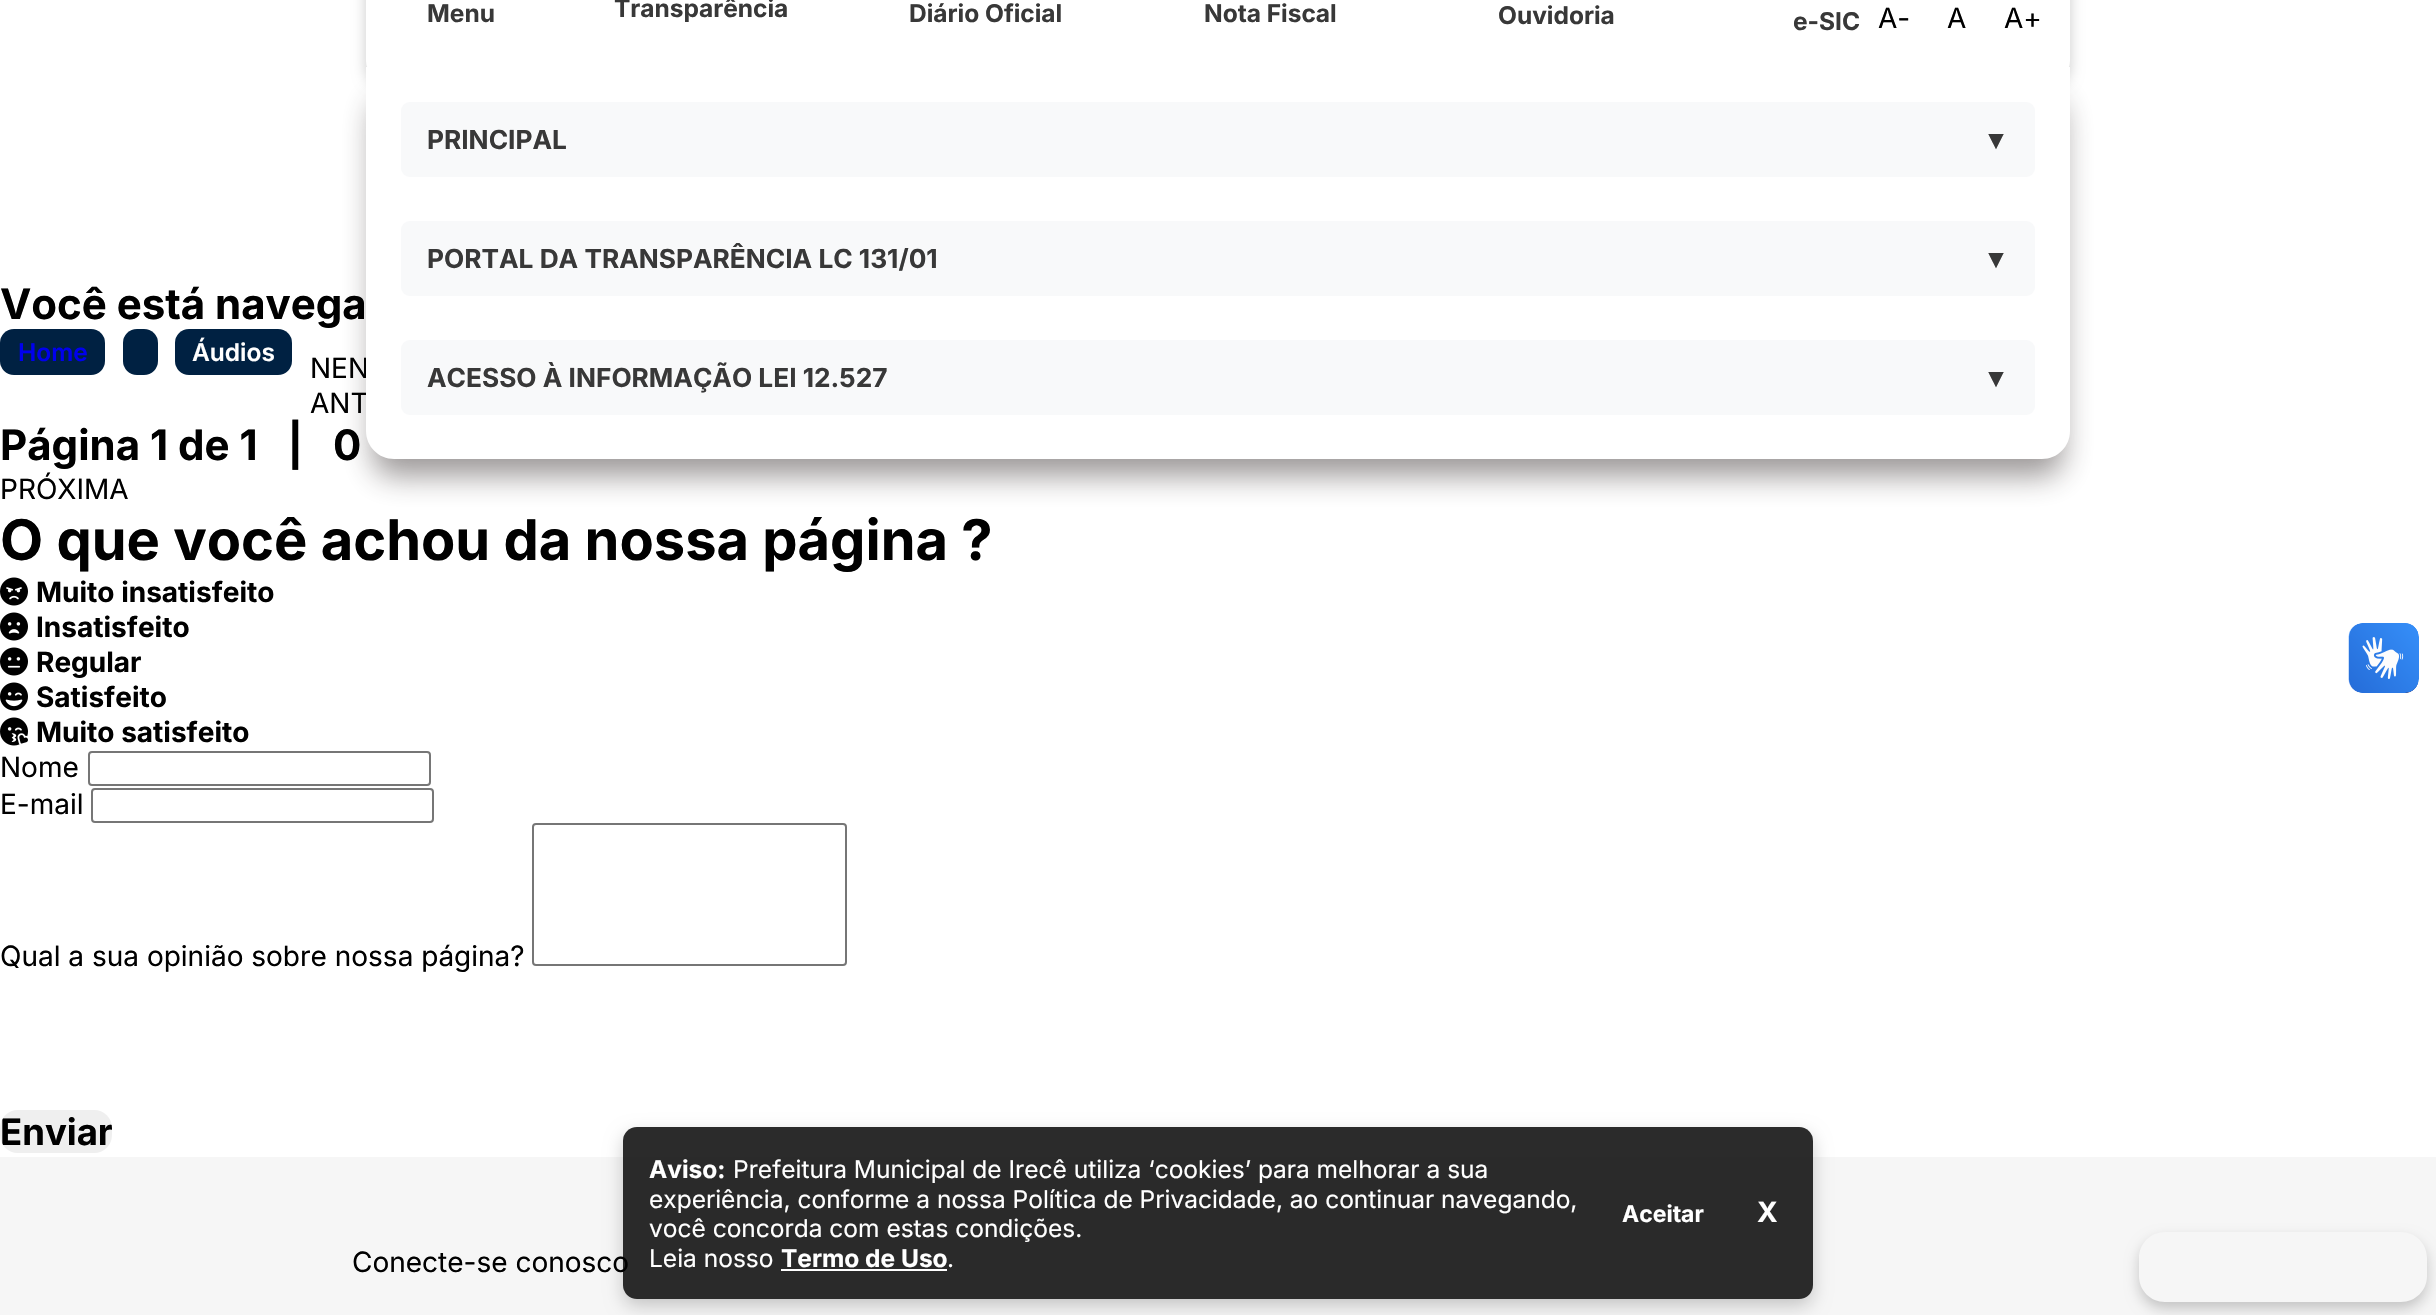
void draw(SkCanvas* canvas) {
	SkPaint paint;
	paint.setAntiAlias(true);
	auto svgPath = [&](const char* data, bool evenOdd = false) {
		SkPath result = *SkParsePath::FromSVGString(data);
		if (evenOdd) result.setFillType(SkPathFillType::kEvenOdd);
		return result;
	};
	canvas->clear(0xffffffff);
	paint.setColor(0x33000000);
	paint.setMaskFilter(SkMaskFilter::MakeBlur(kNormal_SkBlurStyle, 7));
	canvas->drawRoundRect(SkRect::MakeXYWH(366, -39, 1704, 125), 18, 18, paint);
	paint.setMaskFilter(nullptr);
	paint.setColor(0xffffffff);
	canvas->drawRoundRect(SkRect::MakeXYWH(366, -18, 1704, 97), 18, 18, paint);
	SkFont f1(fontMgr->matchFamilyStyle("Inter", SkFontStyle::Bold()), 24.5);
	f1.setSubpixel(true);
	paint.setColor(0xff383838);
	canvas->drawString("Menu", 427, 22, f1, paint);
	canvas->drawString("Transparência", 614, 17, f1, paint);
	canvas->drawString("Diário Oficial", 909, 22, f1, paint);
	canvas->drawString("Nota Fiscal", 1204, 22, f1, paint);
	canvas->drawString("Ouvidoria", 1498, 24, f1, paint);
	canvas->drawString("e-SIC", 1793, 30, f1, paint);
	paint.setColor(0xeb948f8f);
	paint.setMaskFilter(SkMaskFilter::MakeBlur(kNormal_SkBlurStyle, 15));
	canvas->drawRoundRect(SkRect::MakeXYWH(373, 98, 1690, 378), 21, 21, paint);
	paint.setMaskFilter(nullptr);
	SkFont f2(fontMgr->matchFamilyStyle("Inter", SkFontStyle::Normal()), 28);
	f2.setSubpixel(true);
	paint.setColor(0xff000000);
	canvas->drawString("NEN", 310, 378, f2, paint);
	canvas->drawString("ANT", 310, 413, f2, paint);
	paint.setColor(0xffffffff);
	canvas->drawPath(svgPath("M366 67H2070V431C2070 446.5 2057.5 459 2042 459H394C378.5 459 366 446.5 366 431Z"), paint);
	paint.setColor(0xfff8f9fa);
	canvas->drawRoundRect(SkRect::MakeXYWH(401, 102, 1634, 75), 9, 9, paint);
	SkFont f3(fontMgr->matchFamilyStyle("Inter", SkFontStyle::Bold()), 26.25);
	f3.setSubpixel(true);
	paint.setColor(0xff383838);
	canvas->drawString("PRINCIPAL", 427, 149, f3, paint);
	SkFont f4(fontMgr->matchFamilyStyle("Liberation Sans", SkFontStyle::Bold()), 26.25);
	f4.setSubpixel(true);
	canvas->drawString("▼", 1983, 149, f4, paint);
	paint.setColor(0xfff8f9fa);
	canvas->drawRoundRect(SkRect::MakeXYWH(401, 221, 1634, 75), 9, 9, paint);
	paint.setColor(0xff383838);
	canvas->drawString("PORTAL DA TRANSPARÊNCIA LC 131/01", 427, 268, f3, paint);
	canvas->drawString("▼", 1983, 268, f4, paint);
	paint.setColor(0xfff8f9fa);
	canvas->drawRoundRect(SkRect::MakeXYWH(401, 340, 1634, 75), 9, 9, paint);
	paint.setColor(0xff383838);
	canvas->drawString("ACESSO À INFORMAÇÃO LEI 12.527", 427, 387, f3, paint);
	canvas->drawString("▼", 1983, 387, f4, paint);
	paint.setColor(0xff000000);
	canvas->drawString("A-", 1878, 28, f2, paint);
	canvas->drawString("A", 1947, 28, f2, paint);
	canvas->drawString("A+", 2004, 28, f2, paint);
	paint.setColor(0xfff6f6f6);
	canvas->drawRect(SkRect::MakeXYWH(0, 1157, 2436, 158), paint);
	canvas->save();
	canvas->clipPath(svgPath("M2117 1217H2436V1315H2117ZM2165 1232H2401C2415.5 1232 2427 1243.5 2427 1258V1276C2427 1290.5 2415.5 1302 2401 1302H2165C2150.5 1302 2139 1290.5 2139 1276V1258C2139 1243.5 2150.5 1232 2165 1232Z", true), true);
	paint.setColor(0x33000000);
	paint.setMaskFilter(SkMaskFilter::MakeBlur(kNormal_SkBlurStyle, 7));
	canvas->drawRoundRect(SkRect::MakeXYWH(2139, 1239, 288, 70), 26, 26, paint);
	paint.setMaskFilter(nullptr);
	canvas->restore();
	SkFont f5(fontMgr->matchFamilyStyle("Inter", SkFontStyle::Bold()), 42);
	f5.setSubpixel(true);
	paint.setColor(0xff000000);
	canvas->drawString("Você está navega", 0, 319, f5, paint);
	paint.setColor(0xff002142);
	canvas->drawRoundRect(SkRect::MakeXYWH(0, 329, 105, 46), 14, 14, paint);
	SkFont f6(fontMgr->matchFamilyStyle("Inter", SkFontStyle(600, SkFontStyle::kNormal_Width, SkFontStyle::kUpright_Slant)), 24.5);
	f6.setSubpixel(true);
	paint.setColor(0xff0000ee);
	canvas->drawString("Home", 18, 361, f6, paint);
	paint.setColor(0xff002142);
	canvas->drawRoundRect(SkRect::MakeXYWH(123, 329, 35, 46), 14, 14, paint);
	canvas->drawRoundRect(SkRect::MakeXYWH(175, 329, 117, 46), 14, 14, paint);
	paint.setColor(0xffffffff);
	canvas->drawString("Áudios", 192, 361, f6, paint);
	paint.setColor(0xff000000);
	canvas->drawString("Página 1 de 1   |   0", 0, 460, f5, paint);
	canvas->drawString("PRÓXIMA", 0, 499, f2, paint);
	SkFont f7(fontMgr->matchFamilyStyle("Inter", SkFontStyle::Bold()), 56);
	f7.setSubpixel(true);
	canvas->drawString("O que você achou da nossa página ?", 0, 560, f7, paint);
	canvas->drawImageRect(SkImages::DeferredFromEncodedData(SkData::MakeFromFileName("img1.png")), SkRect::MakeXYWH(0, 577, 28, 29), SkSamplingOptions());
	SkFont f8(fontMgr->matchFamilyStyle("Inter", SkFontStyle::Bold()), 28);
	f8.setSubpixel(true);
	canvas->drawString("Muito insatisfeito", 36, 602, f8, paint);
	canvas->drawImageRect(SkImages::DeferredFromEncodedData(SkData::MakeFromFileName("img2.png")), SkRect::MakeXYWH(0, 612, 28, 29), SkSamplingOptions());
	canvas->drawString("Insatisfeito", 36, 637, f8, paint);
	canvas->drawImageRect(SkImages::DeferredFromEncodedData(SkData::MakeFromFileName("img3.png")), SkRect::MakeXYWH(0, 647, 28, 29), SkSamplingOptions());
	canvas->drawString("Regular", 36, 672, f8, paint);
	canvas->drawImageRect(SkImages::DeferredFromEncodedData(SkData::MakeFromFileName("img4.png")), SkRect::MakeXYWH(0, 682, 28, 29), SkSamplingOptions());
	canvas->drawString("Satisfeito", 36, 707, f8, paint);
	canvas->drawImageRect(SkImages::DeferredFromEncodedData(SkData::MakeFromFileName("img5.png")), SkRect::MakeXYWH(0, 717, 28, 29), SkSamplingOptions());
	canvas->drawString("Muito satisfeito", 36, 742, f8, paint);
	canvas->drawString("Nome", 0, 777, f2, paint);
	paint.setStroke(true);
	paint.setStrokeWidth(2);
	paint.setColor(0xff767676);
	canvas->drawRoundRect(SkRect::MakeXYWH(89, 752, 341, 33), 3, 3, paint);
	paint.setStroke(false);
	paint.setColor(0xff000000);
	canvas->drawString("E-mail", 0, 814, f2, paint);
	paint.setStroke(true);
	paint.setColor(0xff767676);
	canvas->drawRoundRect(SkRect::MakeXYWH(92, 789, 341, 33), 3, 3, paint);
	paint.setStroke(false);
	paint.setColor(0xff000000);
	canvas->drawString("Qual a sua opinião sobre nossa página?", 0, 966, f2, paint);
	paint.setStroke(true);
	paint.setColor(0xff767676);
	canvas->drawRoundRect(SkRect::MakeXYWH(533, 824, 313, 141), 3, 3, paint);
	paint.setStroke(false);
	paint.setColor(0xffefefef);
	canvas->drawRoundRect(SkRect::MakeXYWH(0, 1110, 112, 43), 18, 18, paint);
	canvas->save();
	canvas->clipPath(svgPath("M18 1110H94C104 1110 112 1118 112 1128V1135C112 1145 104 1153 94 1153H18C8 1153 0 1145 0 1135V1128C0 1118 8 1110 18 1110Z"), true);
	SkFont f9(fontMgr->matchFamilyStyle("Inter", SkFontStyle::Bold()), 36.5);
	f9.setSubpixel(true);
	paint.setColor(0xff000000);
	canvas->drawString("Enviar", 0, 1145, f9, paint);
	canvas->restore();
	canvas->drawImageRect(SkImages::DeferredFromEncodedData(SkData::MakeFromFileName("img6.png")), SkRect::MakeXYWH(2348, 623, 71, 70), SkSamplingOptions());
	canvas->drawImageRect(SkImages::DeferredFromEncodedData(SkData::MakeFromFileName("img7.png")), SkRect::MakeXYWH(2349, 623, 70, 70), SkSamplingOptions());
	canvas->drawString("Conecte-se conosco", 352, 1272, f2, paint);
	canvas->save();
	canvas->clipPath(svgPath("M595 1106H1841V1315H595ZM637 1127H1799C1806.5 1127 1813 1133.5 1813 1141V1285C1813 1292.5 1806.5 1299 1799 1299H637C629.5 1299 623 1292.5 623 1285V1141C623 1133.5 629.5 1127 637 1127Z", true), true);
	paint.setColor(0x33000000);
	paint.setMaskFilter(SkMaskFilter::MakeBlur(kNormal_SkBlurStyle, 9));
	canvas->drawRoundRect(SkRect::MakeXYWH(623, 1134, 1190, 172), 14, 14, paint);
	paint.setMaskFilter(nullptr);
	canvas->restore();
	paint.setColor(0xd4000000);
	canvas->drawRoundRect(SkRect::MakeXYWH(623, 1127, 1190, 172), 14, 14, paint);
	paint.setColor(0xffffffff);
	canvas->drawString("Aviso:", 649, 1178, f1, paint);
	SkFont f10(fontMgr->matchFamilyStyle("Inter", SkFontStyle::Normal()), 24.5);
	f10.setSubpixel(true);
	canvas->drawString("Prefeitura Municipal de Irecê utiliza ‘cookies’ para melhorar a sua", 733, 1178, f10, paint);
	canvas->drawString("experiência, conforme a nossa Política de Privacidade, ao continuar navegando,", 649, 1208, f10, paint);
	canvas->drawString("você concorda com estas condições.", 649, 1237, f10, paint);
	canvas->drawString("Leia nosso", 649, 1267, f10, paint);
	canvas->drawString("Termo de Uso", 781, 1267, f1, paint);
	canvas->drawRect(SkRect::MakeXYWH(781, 1269, 166, 2), paint);
	canvas->drawString(".", 947, 1267, f10, paint);
	SkFont f11(fontMgr->matchFamilyStyle("Inter", SkFontStyle::Bold()), 23);
	f11.setSubpixel(true);
	canvas->drawString("Aceitar", 1622, 1222, f11, paint);
	canvas->drawString("X", 1757, 1222, f8, paint);
}
